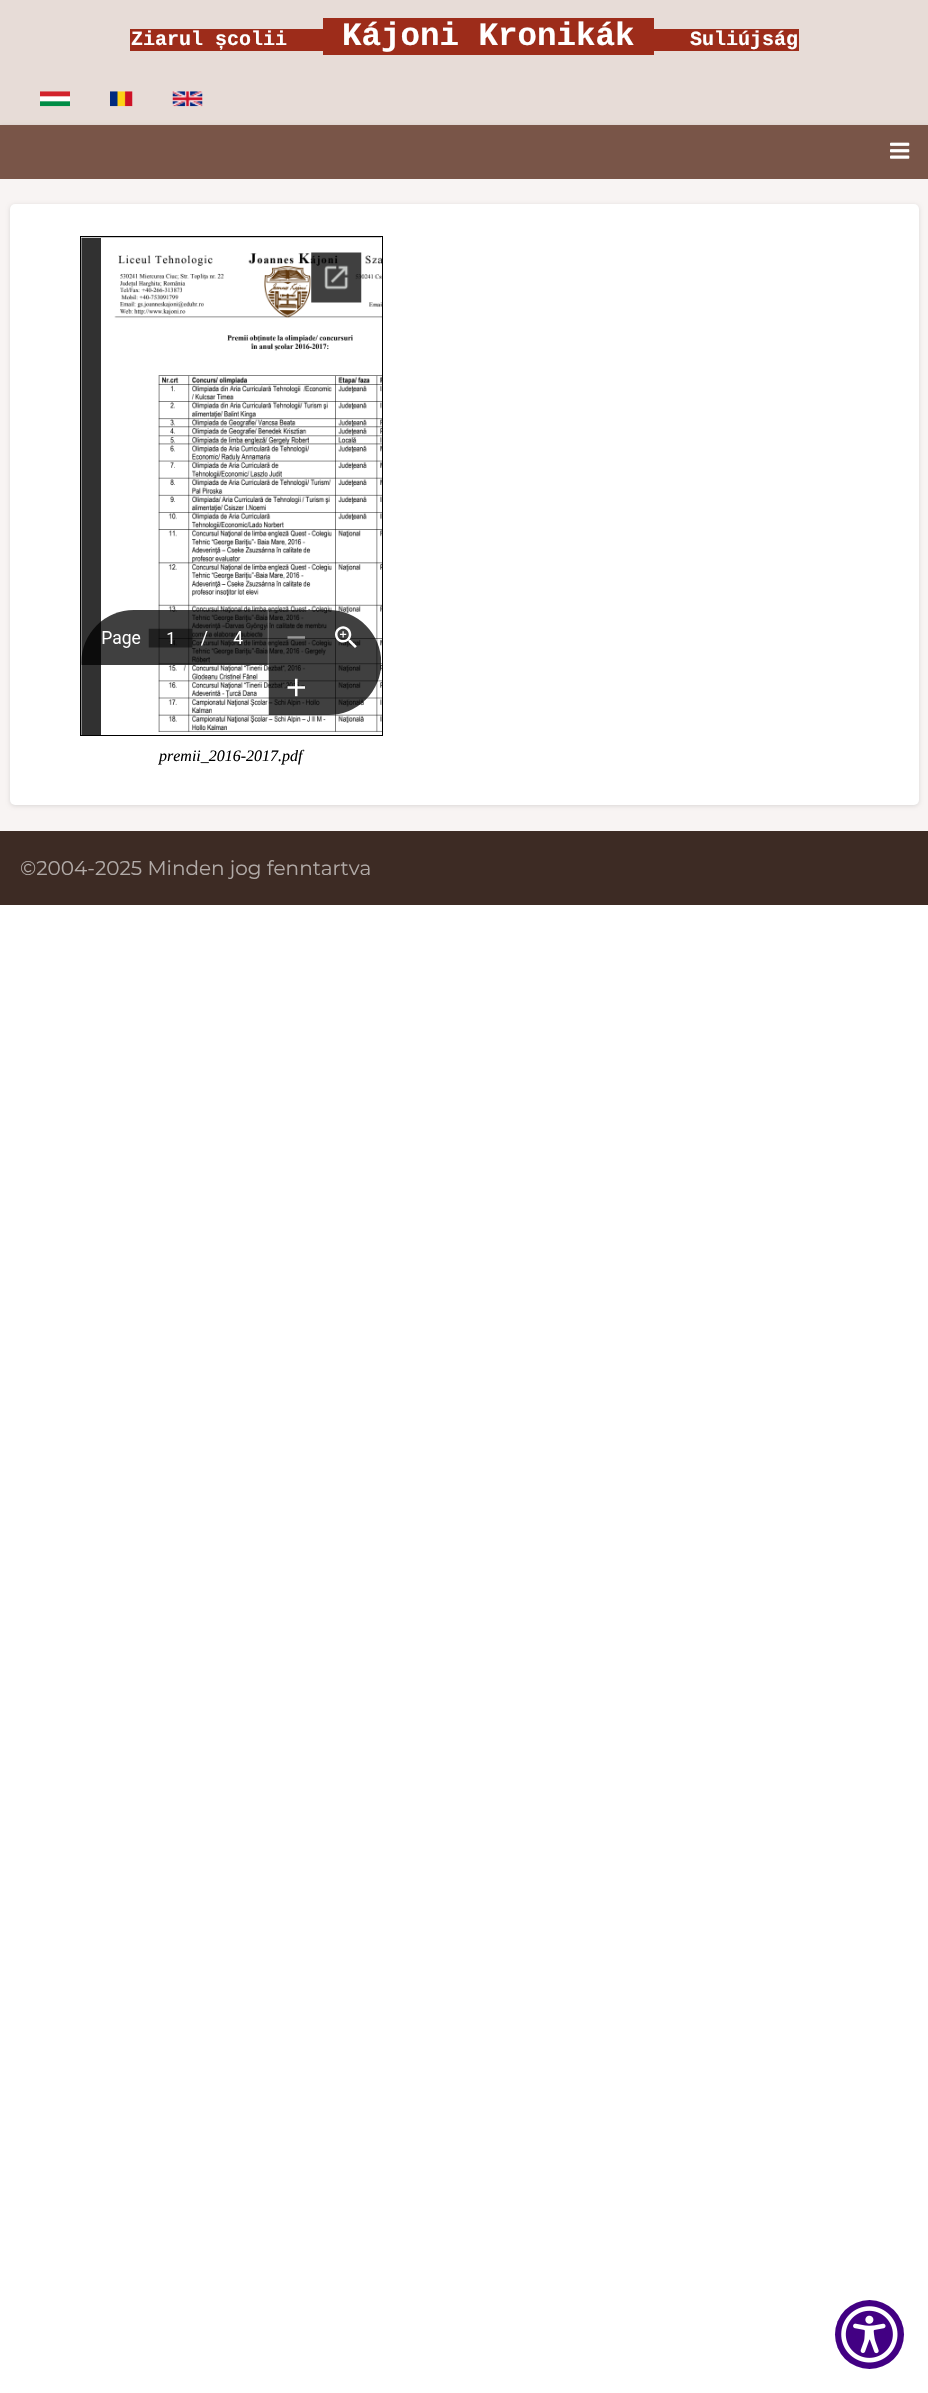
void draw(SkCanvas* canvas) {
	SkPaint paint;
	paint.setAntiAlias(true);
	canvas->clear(0xffffffff);
	paint.setColor(0xffe7dcd7);
	canvas->drawRect(SkRect::MakeXYWH(0, 0, 928, 125), paint);
	paint.setColor(0xff9d2c1a);
	canvas->drawRect(SkRect::MakeXYWH(130, 29, 193, 22), paint);
	SkFont f1(fontMgr->matchFamilyStyle("Liberation Mono", SkFontStyle::Bold()), 20);
	f1.setSubpixel(true);
	paint.setColor(0xffffffff);
	canvas->drawString("Ziarul școlii", 131, 45, f1, paint);
	paint.setColor(0xff9d2c1a);
	canvas->drawRect(SkRect::MakeXYWH(323, 18, 331, 37), paint);
	SkFont f2(fontMgr->matchFamilyStyle("Liberation Mono", SkFontStyle::Bold()), 32.5);
	f2.setSubpixel(true);
	paint.setColor(0xffffffff);
	canvas->drawString("Kájoni Kronikák", 342, 45, f2, paint);
	paint.setColor(0xff9d2c1a);
	canvas->drawRect(SkRect::MakeXYWH(654, 29, 145, 22), paint);
	paint.setColor(0xffffffff);
	canvas->drawString("Suliújság", 690, 45, f1, paint);
	canvas->drawImageRect(SkImages::DeferredFromEncodedData(SkData::MakeFromFileName("img1.png")), SkRect::MakeXYWH(40, 91, 30, 16), SkSamplingOptions());
	canvas->drawImageRect(SkImages::DeferredFromEncodedData(SkData::MakeFromFileName("img2.png")), SkRect::MakeXYWH(110, 91, 23, 16), SkSamplingOptions());
	canvas->drawImageRect(SkImages::DeferredFromEncodedData(SkData::MakeFromFileName("img3.png")), SkRect::MakeXYWH(172, 91, 31, 16), SkSamplingOptions());
	paint.setColor(0x1f000000);
	paint.setMaskFilter(SkMaskFilter::MakeBlur(kNormal_SkBlurStyle, 2));
	canvas->drawRect(SkRect::MakeXYWH(0, 126, 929, 54), paint);
	paint.setMaskFilter(nullptr);
	paint.setColor(0xff795548);
	canvas->drawRect(SkRect::MakeXYWH(0, 125, 928, 54), paint);
	canvas->drawImageRect(SkImages::DeferredFromEncodedData(SkData::MakeFromFileName("img4.png")), SkRect::MakeXYWH(890, 142, 20, 17), SkSamplingOptions());
	paint.setColor(0xfff8f4f3);
	canvas->drawRect(SkRect::MakeXYWH(0, 179, 928, 652), paint);
	paint.setColor(0x1f000000);
	paint.setMaskFilter(SkMaskFilter::MakeBlur(kNormal_SkBlurStyle, 2));
	canvas->drawRoundRect(SkRect::MakeXYWH(10, 205, 909, 601), 5, 5, paint);
	paint.setMaskFilter(nullptr);
	paint.setColor(0xffffffff);
	canvas->drawRoundRect(SkRect::MakeXYWH(10, 204, 909, 601), 5, 5, paint);
	paint.setStroke(true);
	paint.setStrokeWidth(1);
	paint.setColor(0xff000000);
	canvas->drawRect(SkRect::MakeXYWH(80.5, 236.5, 302, 499), paint);
	canvas->drawImageRect(SkImages::DeferredFromEncodedData(SkData::MakeFromFileName("img5.png")), SkRect::MakeXYWH(81, 237, 301, 498), SkSamplingOptions());
	SkFont f3(fontMgr->matchFamilyStyle("Liberation Serif", SkFontStyle::Italic()), 16);
	f3.setSubpixel(true);
	paint.setStroke(false);
	canvas->drawString("premii_2016-2017.pdf", 159, 761, f3, paint);
	paint.setColor(0xff3d2b24);
	canvas->drawRect(SkRect::MakeXYWH(0, 831, 928, 74), paint);
	SkFont f4(fontMgr->matchFamilyStyle("Montserrat", SkFontStyle(100, SkFontStyle::kNormal_Width, SkFontStyle::kUpright_Slant)), 20);
	f4.setSubpixel(true);
	paint.setColor(0xffb1aaa7);
	canvas->drawString("©2004-2025 Minden jog fenntartva", 20, 875, f4, paint);
	paint.setColor(0xff420083);
	canvas->drawCircle(869.5, 2334.5, 34.5, paint);
	canvas->drawImageRect(SkImages::DeferredFromEncodedData(SkData::MakeFromFileName("img6.png")), SkRect::MakeXYWH(841, 2306, 57, 57), SkSamplingOptions());
}
